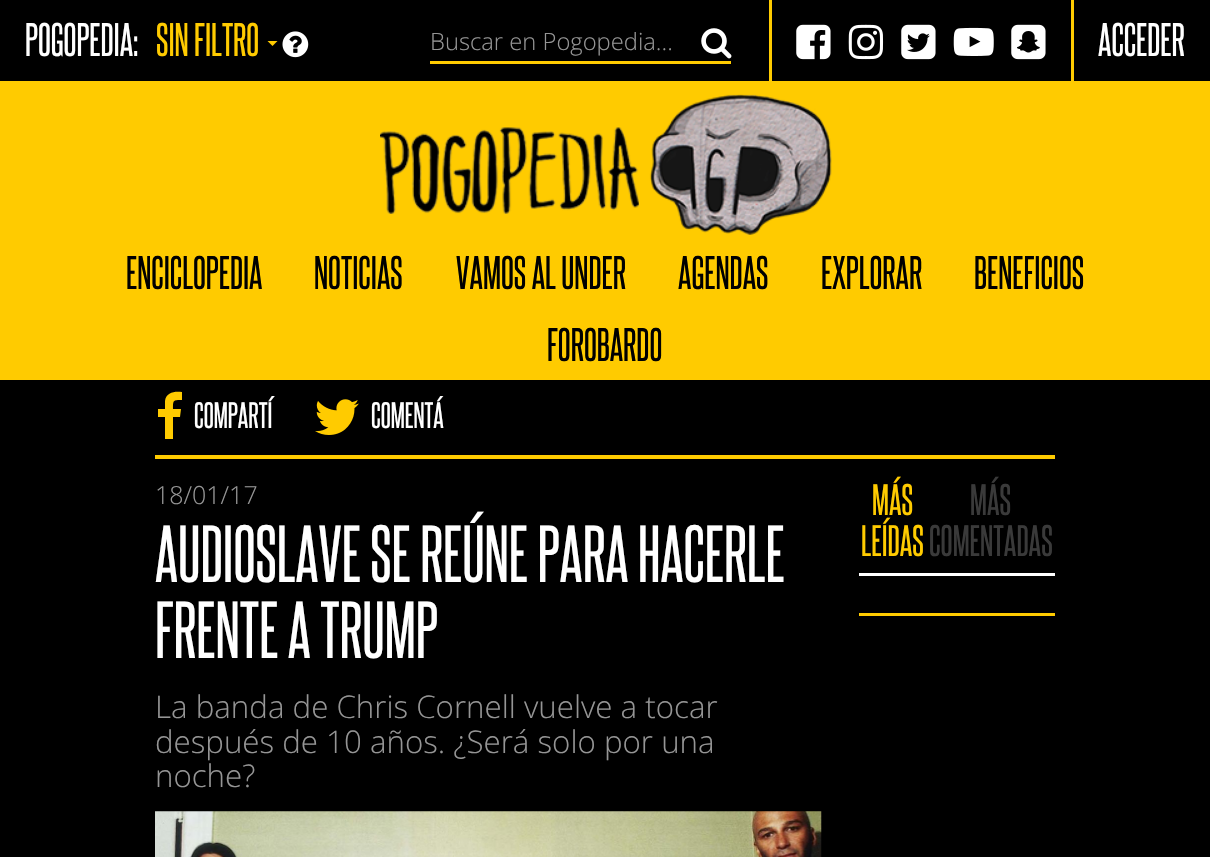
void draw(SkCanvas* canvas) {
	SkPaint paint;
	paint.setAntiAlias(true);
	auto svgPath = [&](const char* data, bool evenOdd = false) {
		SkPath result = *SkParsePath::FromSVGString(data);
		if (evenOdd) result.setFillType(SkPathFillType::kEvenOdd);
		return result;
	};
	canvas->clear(0xff000000);
	SkFont f1(fontMgr->matchFamilyStyle("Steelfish", SkFontStyle::Normal()), 40);
	f1.setSubpixel(true);
	paint.setColor(0xffffffff);
	canvas->drawString("POGOPEDIA:", 25, 56, f1, paint);
	paint.setColor(0xffffcb00);
	canvas->drawString("SIN FILTRO", 156, 56, f1, paint);
	canvas->drawPath(svgPath("M267.5 41H277.5L272.5 46Z"), paint);
	canvas->drawImageRect(SkImages::DeferredFromEncodedData(SkData::MakeFromFileName("img1.png")), SkRect::MakeXYWH(282, 31, 27, 27), SkSamplingOptions());
	canvas->drawRect(SkRect::MakeXYWH(430, 61, 301, 3), paint);
	canvas->drawImageRect(SkImages::DeferredFromEncodedData(SkData::MakeFromFileName("img2.png")), SkRect::MakeXYWH(701, 28, 31, 31), SkSamplingOptions());
	SkFont f2(fontMgr->matchFamilyStyle("Open Sans", SkFontStyle(300, SkFontStyle::kNormal_Width, SkFontStyle::kUpright_Slant)), 23.75);
	f2.setSubpixel(true);
	paint.setColor(0xff959595);
	canvas->drawString("Buscar en Pogopedia...", 430, 50, f2, paint);
	paint.setColor(0xffffcb00);
	canvas->drawRect(SkRect::MakeXYWH(1071, 0, 3, 81), paint);
	canvas->drawRect(SkRect::MakeXYWH(769, 0, 3, 81), paint);
	canvas->drawImageRect(SkImages::DeferredFromEncodedData(SkData::MakeFromFileName("img3.png")), SkRect::MakeXYWH(796, 24, 35, 36), SkSamplingOptions());
	canvas->drawImageRect(SkImages::DeferredFromEncodedData(SkData::MakeFromFileName("img4.png")), SkRect::MakeXYWH(848, 24, 36, 36), SkSamplingOptions());
	canvas->drawImageRect(SkImages::DeferredFromEncodedData(SkData::MakeFromFileName("img5.png")), SkRect::MakeXYWH(901, 24, 35, 36), SkSamplingOptions());
	canvas->drawImageRect(SkImages::DeferredFromEncodedData(SkData::MakeFromFileName("img6.png")), SkRect::MakeXYWH(953, 27, 41, 29), SkSamplingOptions());
	canvas->drawImageRect(SkImages::DeferredFromEncodedData(SkData::MakeFromFileName("img7.png")), SkRect::MakeXYWH(1011, 24, 35, 36), SkSamplingOptions());
	paint.setColor(0xffffffff);
	canvas->drawString("ACCEDER", 1098, 56, f1, paint);
	paint.setColor(0xffffcb00);
	canvas->drawRect(SkRect::MakeXYWH(0, 81, 1210, 299), paint);
	canvas->drawImageRect(SkImages::DeferredFromEncodedData(SkData::MakeFromFileName("img8.png")), SkRect::MakeXYWH(380, 94, 452, 141), SkSamplingOptions());
	paint.setColor(0xff000000);
	canvas->drawString("ENCICLOPEDIA", 126, 289, f1, paint);
	canvas->drawString("NOTICIAS", 314, 289, f1, paint);
	canvas->drawString("VAMOS AL UNDER", 456, 289, f1, paint);
	canvas->drawString("AGENDAS", 678, 289, f1, paint);
	canvas->drawString("EXPLORAR", 821, 289, f1, paint);
	canvas->drawString("BENEFICIOS", 974, 289, f1, paint);
	canvas->drawString("FOROBARDO", 547, 361, f1, paint);
	paint.setColor(0xffffcb00);
	canvas->drawRect(SkRect::MakeXYWH(155, 455, 900, 4), paint);
	canvas->drawPath(svgPath("M182 392V400C173 400 173 400 173 409H181L180 417H173V439H165V417H158V409H165V401C166 392 175 391 182 392Z"), paint);
	SkFont f3(fontMgr->matchFamilyStyle("Steelfish", SkFontStyle::Normal()), 31.25);
	f3.setSubpixel(true);
	paint.setColor(0xffffffff);
	canvas->drawString("COMPARTÍ", 194, 428, f3, paint);
	canvas->drawImageRect(SkImages::DeferredFromEncodedData(SkData::MakeFromFileName("img9.png")), SkRect::MakeXYWH(315, 399, 44, 36), SkSamplingOptions());
	canvas->drawString("COMENTÁ", 371, 428, f3, paint);
	SkFont f4(fontMgr->matchFamilyStyle("Open Sans", SkFontStyle(300, SkFontStyle::kNormal_Width, SkFontStyle::kUpright_Slant)), 25);
	f4.setSubpixel(true);
	paint.setColor(0xff959595);
	canvas->drawString("18/01/17", 155, 504, f4, paint);
	SkFont f5(fontMgr->matchFamilyStyle("Steelfish", SkFontStyle::Normal()), 68.75);
	f5.setSubpixel(true);
	paint.setColor(0xffffffff);
	canvas->drawString("AUDIOSLAVE SE REÚNE PARA HACERLE", 155, 582, f5, paint);
	canvas->drawString("FRENTE A TRUMP", 155, 658, f5, paint);
	SkFont f6(fontMgr->matchFamilyStyle("Open Sans", SkFontStyle(300, SkFontStyle::kNormal_Width, SkFontStyle::kUpright_Slant)), 31.25);
	f6.setSubpixel(true);
	paint.setColor(0xff959595);
	canvas->drawString("La banda de Chris Cornell vuelve a tocar", 155, 718, f6, paint);
	canvas->drawString("después de 10 años. ¿Será solo por una", 155, 753, f6, paint);
	canvas->drawString("noche?", 155, 787, f6, paint);
	canvas->drawImageRect(SkImages::DeferredFromEncodedData(SkData::MakeFromFileName("img10.png")), SkRect::MakeXYWH(155, 811, 667, 46), SkSamplingOptions());
	paint.setColor(0xffffffff);
	canvas->drawRect(SkRect::MakeXYWH(859, 573, 196, 3), paint);
	SkFont f7(fontMgr->matchFamilyStyle("Steelfish", SkFontStyle::Normal()), 37.5);
	f7.setSubpixel(true);
	paint.setColor(0xffffcb00);
	canvas->drawString("MÁS", 872, 515, f7, paint);
	canvas->drawString("LEÍDAS", 861, 556, f7, paint);
	paint.setColor(0xff3a3a3a);
	canvas->drawString("MÁS", 970, 515, f7, paint);
	canvas->drawString("COMENTADAS", 929, 556, f7, paint);
	paint.setColor(0xffffcb00);
	canvas->drawRect(SkRect::MakeXYWH(859, 613, 196, 3), paint);
}
